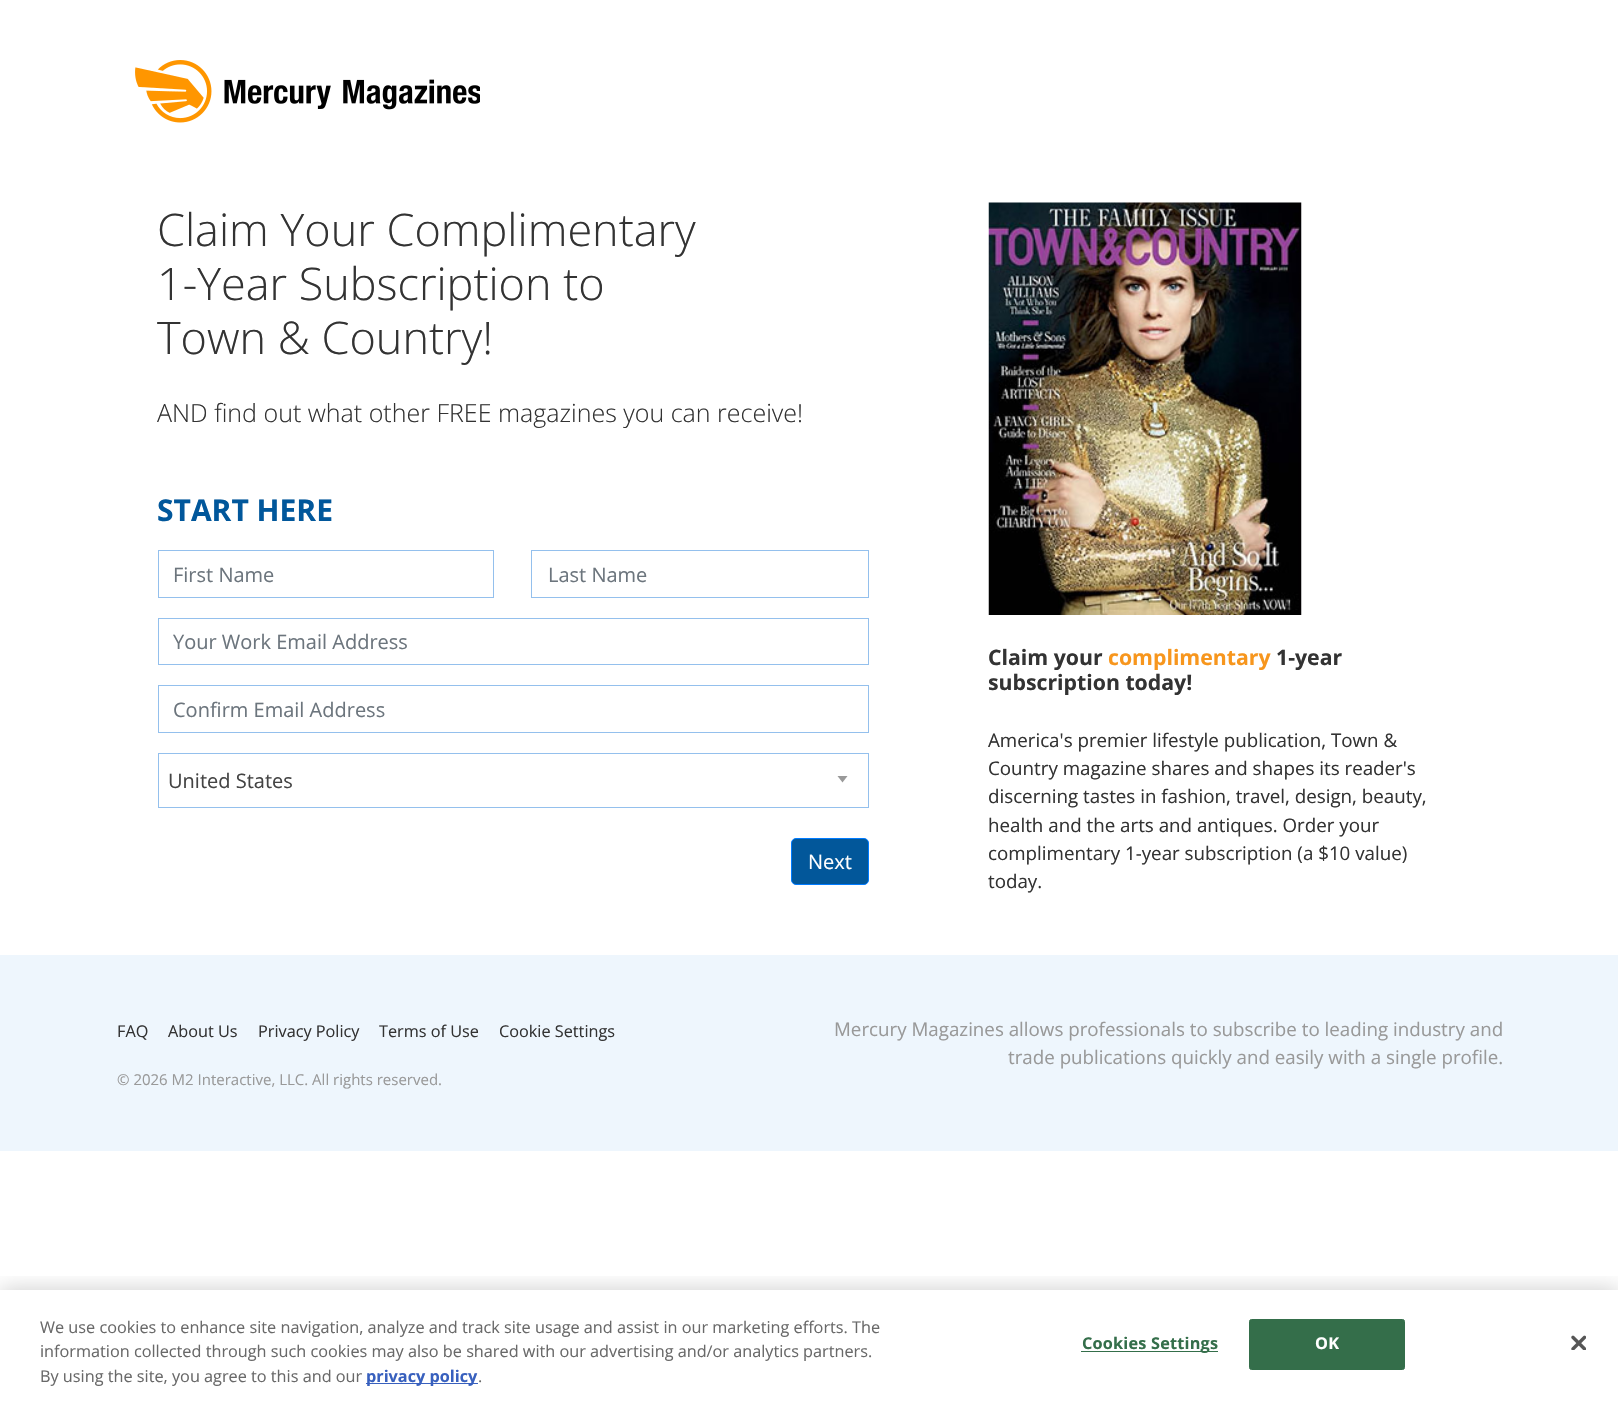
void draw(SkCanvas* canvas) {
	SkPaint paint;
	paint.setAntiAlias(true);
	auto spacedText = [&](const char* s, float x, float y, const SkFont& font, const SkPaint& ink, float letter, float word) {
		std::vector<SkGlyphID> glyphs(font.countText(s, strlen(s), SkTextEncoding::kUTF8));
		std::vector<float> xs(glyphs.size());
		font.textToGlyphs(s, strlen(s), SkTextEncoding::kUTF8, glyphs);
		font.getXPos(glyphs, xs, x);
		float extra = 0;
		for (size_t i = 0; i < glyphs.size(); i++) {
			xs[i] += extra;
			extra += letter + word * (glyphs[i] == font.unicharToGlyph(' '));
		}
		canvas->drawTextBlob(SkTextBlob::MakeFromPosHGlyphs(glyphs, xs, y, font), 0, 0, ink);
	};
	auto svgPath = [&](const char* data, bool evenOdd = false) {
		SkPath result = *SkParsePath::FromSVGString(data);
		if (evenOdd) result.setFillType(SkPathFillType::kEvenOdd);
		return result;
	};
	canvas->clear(0xffffffff);
	canvas->drawImageRect(SkImages::DeferredFromEncodedData(SkData::MakeFromFileName("img1.png")), SkRect::MakeXYWH(135, 60, 345, 63), SkSamplingOptions());
	SkFont f1(fontMgr->matchFamilyStyle("Open Sans", SkFontStyle(300, SkFontStyle::kNormal_Width, SkFontStyle::kUpright_Slant)), 45);
	f1.setSubpixel(true);
	paint.setColor(0xff333333);
	canvas->drawString("Claim Your Complimentary", 157, 246, f1, paint);
	canvas->drawString("1-Year Subscription to", 157, 300, f1, paint);
	canvas->drawString("Town & Country!", 157, 354, f1, paint);
	SkFont f2(fontMgr->matchFamilyStyle("Open Sans", SkFontStyle(300, SkFontStyle::kNormal_Width, SkFontStyle::kUpright_Slant)), 25);
	f2.setSubpixel(true);
	canvas->drawString("AND find out what other FREE magazines you can receive!", 157, 422, f2, paint);
	SkFont f3(fontMgr->matchFamilyStyle("Open Sans", SkFontStyle::Bold()), 30);
	f3.setSubpixel(true);
	paint.setColor(0xff01579b);
	canvas->drawString("START HERE", 157, 521, f3, paint);
	paint.setStroke(true);
	paint.setStrokeWidth(1);
	paint.setColor(0xff94c0ed);
	canvas->drawRect(SkRect::MakeXYWH(158.5, 550.5, 335, 47), paint);
	SkFont f4(fontMgr->matchFamilyStyle("Open Sans", SkFontStyle::Normal()), 20);
	f4.setSubpixel(true);
	paint.setStroke(false);
	paint.setColor(0xff6c757d);
	canvas->drawString("First Name", 173, 582, f4, paint);
	paint.setStroke(true);
	paint.setColor(0xff94c0ed);
	canvas->drawRect(SkRect::MakeXYWH(531.5, 550.5, 337, 47), paint);
	paint.setStroke(false);
	paint.setColor(0xff6c757d);
	canvas->drawString("Last Name", 548, 582, f4, paint);
	paint.setStroke(true);
	paint.setColor(0xff94c0ed);
	canvas->drawRect(SkRect::MakeXYWH(158.5, 618.5, 710, 46), paint);
	paint.setStroke(false);
	paint.setColor(0xff6c757d);
	canvas->drawString("Your Work Email Address", 173, 649, f4, paint);
	paint.setStroke(true);
	paint.setColor(0xff94c0ed);
	canvas->drawRect(SkRect::MakeXYWH(158.5, 685.5, 710, 47), paint);
	paint.setStroke(false);
	paint.setColor(0xff6c757d);
	canvas->drawString("Confirm Email Address", 173, 717, f4, paint);
	paint.setStroke(true);
	paint.setColor(0xff94c0ed);
	canvas->drawRect(SkRect::MakeXYWH(158.5, 753.5, 710, 54), paint);
	paint.setStroke(false);
	paint.setColor(0xff444444);
	canvas->drawString("United States", 168, 788, f4, paint);
	paint.setColor(0xff999999);
	canvas->drawPath(svgPath("M837.5 776H847.5L842.5 782.5Z"), paint);
	paint.setColor(0xff02579a);
	canvas->drawRoundRect(SkRect::MakeXYWH(791.5, 838.5, 77, 46), 4.5, 4.5, paint);
	paint.setStroke(true);
	paint.setColor(0xff007bff);
	canvas->drawRoundRect(SkRect::MakeXYWH(791.5, 838.5, 77, 46), 4.5, 4.5, paint);
	paint.setStroke(false);
	paint.setColor(0xffffffff);
	canvas->drawString("Next", 808, 869, f4, paint);
	canvas->drawImageRect(SkImages::DeferredFromEncodedData(SkData::MakeFromFileName("img2.png")), SkRect::MakeXYWH(988, 202, 314, 413), SkSamplingOptions());
	SkFont f5(fontMgr->matchFamilyStyle("Open Sans", SkFontStyle::Bold()), 21.25);
	f5.setSubpixel(true);
	paint.setColor(0xff333333);
	canvas->drawString("Claim your", 988, 665, f5, paint);
	paint.setColor(0xfff7961d);
	canvas->drawString("complimentary", 1108, 665, f5, paint);
	paint.setColor(0xff333333);
	canvas->drawString("1-year", 1276, 665, f5, paint);
	canvas->drawString("subscription today!", 988, 690, f5, paint);
	SkFont f6(fontMgr->matchFamilyStyle("Open Sans", SkFontStyle::Normal()), 18.75);
	f6.setSubpixel(true);
	canvas->drawString("America's premier lifestyle publication, Town &", 988, 747, f6, paint);
	canvas->drawString("Country magazine shares and shapes its reader's", 988, 775, f6, paint);
	canvas->drawString("discerning tastes in fashion, travel, design, beauty,", 988, 803, f6, paint);
	canvas->drawString("health and the arts and antiques. Order your", 988, 832, f6, paint);
	canvas->drawString("complimentary 1-year subscription (a $10 value)", 988, 860, f6, paint);
	canvas->drawString("today.", 988, 888, f6, paint);
	paint.setColor(0xffeef6fd);
	canvas->drawRect(SkRect::MakeXYWH(0, 955, 1618, 196), paint);
	SkFont f7(fontMgr->matchFamilyStyle("Open Sans", SkFontStyle::Normal()), 16.25);
	f7.setSubpixel(true);
	paint.setColor(0xff333333);
	canvas->drawString("FAQ", 117, 1037, f7, paint);
	canvas->drawString("About Us", 168, 1037, f7, paint);
	canvas->drawString("Privacy Policy", 258, 1037, f7, paint);
	canvas->drawString("Terms of Use", 379, 1037, f7, paint);
	canvas->drawString("Cookie Settings", 499, 1037, f7, paint);
	SkFont f8(fontMgr->matchFamilyStyle("Open Sans", SkFontStyle::Normal()), 15);
	f8.setSubpixel(true);
	paint.setColor(0xff999999);
	canvas->drawString("© 2026 M2 Interactive, LLC. All rights reserved.", 117, 1085, f8, paint);
	canvas->drawString("Mercury Magazines allows professionals to subscribe to leading industry and", 834, 1036, f6, paint);
	canvas->drawString("trade publications quickly and easily with a single profile.", 1008, 1064, f6, paint);
	canvas->save();
	canvas->clipRect(SkRect::MakeXYWH(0, 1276, 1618, 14));
	paint.setColor(0x33000000);
	paint.setMaskFilter(SkMaskFilter::MakeBlur(kNormal_SkBlurStyle, 11));
	canvas->drawRect(SkRect::MakeXYWH(0, 1290, 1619, 111), paint);
	paint.setMaskFilter(nullptr);
	canvas->restore();
	paint.setColor(0xff696969);
	canvas->drawString("We use cookies to enhance site navigation, analyze and track site usage and assist in our marketing efforts. The", 40, 1333, f7, paint);
	canvas->drawString("information collected through such cookies may also be shared with our advertising and/or analytics partners.", 40, 1357, f7, paint);
	canvas->drawString("By using the site, you agree to this and our", 40, 1382, f7, paint);
	paint.setColor(0xff3860be);
	canvas->drawRect(SkRect::MakeXYWH(366, 1383, 112, 1), paint);
	SkFont f9(fontMgr->matchFamilyStyle("Open Sans", SkFontStyle::Bold()), 16.25);
	f9.setSubpixel(true);
	canvas->drawString("privacy policy", 366, 1382, f9, paint);
	paint.setColor(0xff696969);
	canvas->drawString(".", 478, 1382, f7, paint);
	paint.setColor(0xff346e4a);
	canvas->drawRect(SkRect::MakeXYWH(1081, 1351, 137, 1), paint);
	spacedText("Cookies Settings", 1082, 1349, f9, paint, 0.2, 0);
	canvas->drawRoundRect(SkRect::MakeXYWH(1249.5, 1319.5, 155, 50), 2, 2, paint);
	paint.setStroke(true);
	canvas->drawRoundRect(SkRect::MakeXYWH(1249.5, 1319.5, 155, 50), 2, 2, paint);
	paint.setStroke(false);
	paint.setColor(0xffffffff);
	spacedText("OK", 1315, 1349, f9, paint, 0.2, 0);
	canvas->drawImageRect(SkImages::DeferredFromEncodedData(SkData::MakeFromFileName("img3.png")), SkRect::MakeXYWH(1571, 1335, 15, 15), SkSamplingOptions());
}
